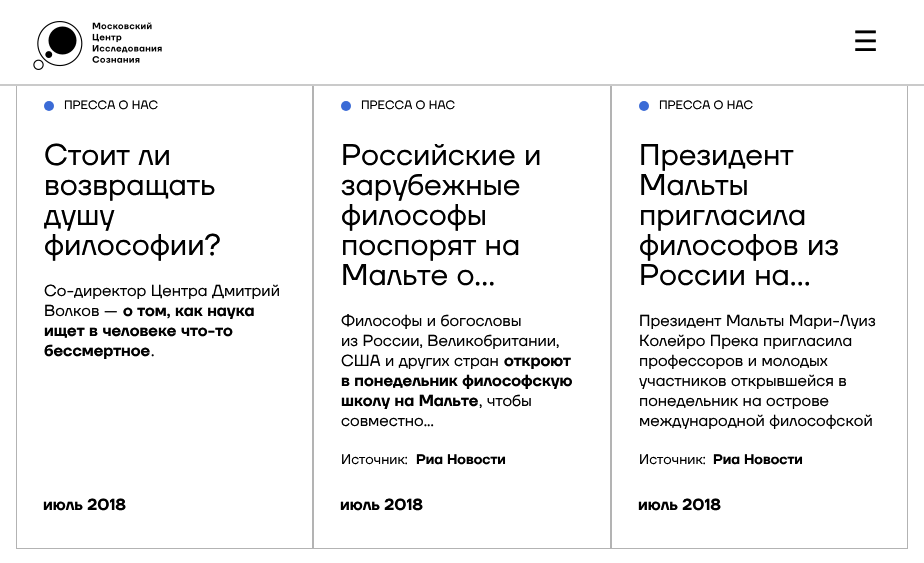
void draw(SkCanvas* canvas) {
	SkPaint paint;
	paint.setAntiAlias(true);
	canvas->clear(0xffffffff);
	paint.setStroke(true);
	paint.setStrokeWidth(1);
	paint.setColor(0xffb3b3b3);
	canvas->drawRect(SkRect::MakeXYWH(16.5, -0.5, 296, 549), paint);
	canvas->drawRect(SkRect::MakeXYWH(313.5, -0.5, 297, 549), paint);
	canvas->drawRect(SkRect::MakeXYWH(611.5, -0.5, 296, 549), paint);
	paint.setStroke(false);
	paint.setColor(0xffffffff);
	canvas->drawRect(SkRect::MakeXYWH(16, 0, 892, 84), paint);
	paint.setColor(0xffcacaca);
	canvas->drawRect(SkRect::MakeXYWH(0, 84, 924, 2), paint);
	canvas->drawImageRect(SkImages::DeferredFromEncodedData(SkData::MakeFromFileName("img1.png")), SkRect::MakeXYWH(33, 21, 129, 49), SkSamplingOptions());
	SkFont f1(fontMgr->matchFamilyStyle("DejaVu Sans", SkFontStyle::Normal()), 28);
	f1.setSubpixel(true);
	paint.setColor(0xff000000);
	canvas->drawString("☰", 853, 51, f1, paint);
	paint.setColor(0xff3b6bd6);
	canvas->drawCircle(49, 106, 5, paint);
	SkFont f2(fontMgr->matchFamilyStyle("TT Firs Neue", SkFontStyle::Normal()), 12);
	f2.setSubpixel(true);
	paint.setColor(0xff000000);
	canvas->drawString("ПРЕССА О НАС", 64, 109, f2, paint);
	SkFont f3(fontMgr->matchFamilyStyle("TT Firs Neue", SkFontStyle::Normal()), 30);
	f3.setSubpixel(true);
	canvas->drawString("Стоит ли", 44, 165, f3, paint);
	canvas->drawString("возвращать", 44, 195, f3, paint);
	canvas->drawString("душу", 44, 225, f3, paint);
	canvas->drawString("философии?", 44, 255, f3, paint);
	SkFont f4(fontMgr->matchFamilyStyle("TT Firs Neue", SkFontStyle::Normal()), 16);
	f4.setSubpixel(true);
	canvas->drawString("Со-директор Центра Дмитрий", 44, 296, f4, paint);
	canvas->drawString("Волков —", 44, 316, f4, paint);
	SkFont f5(fontMgr->matchFamilyStyle("TT Firs Neue", SkFontStyle(600, SkFontStyle::kNormal_Width, SkFontStyle::kUpright_Slant)), 16);
	f5.setSubpixel(true);
	canvas->drawString("о том, как наука", 123, 316, f5, paint);
	canvas->drawString("ищет в человеке что-то", 44, 336, f5, paint);
	canvas->drawString("бессмертное", 44, 356, f5, paint);
	canvas->drawString(".", 151, 356, f4, paint);
	canvas->drawString("июль 2018", 43, 510, f5, paint);
	paint.setColor(0xff3b6bd6);
	canvas->drawCircle(346, 106, 5, paint);
	paint.setColor(0xff000000);
	canvas->drawString("ПРЕССА О НАС", 361, 109, f2, paint);
	canvas->drawString("Российские и", 341, 165, f3, paint);
	canvas->drawString("зарубежные", 341, 195, f3, paint);
	canvas->drawString("философы", 341, 225, f3, paint);
	canvas->drawString("поспорят на", 341, 255, f3, paint);
	canvas->drawString("Мальте о…", 341, 285, f3, paint);
	canvas->drawString("Философы и богословы", 341, 326, f4, paint);
	canvas->drawString("из России, Великобритании,", 341, 346, f4, paint);
	canvas->drawString("США и других стран", 341, 366, f4, paint);
	canvas->drawString("откроют", 504, 366, f5, paint);
	canvas->drawString("в понедельник философскую", 341, 386, f5, paint);
	canvas->drawString("школу на Мальте", 341, 406, f5, paint);
	canvas->drawString(", чтобы", 479, 406, f4, paint);
	canvas->drawString("совместно...", 341, 426, f4, paint);
	SkFont f6(fontMgr->matchFamilyStyle("TT Firs Neue", SkFontStyle::Normal()), 14);
	f6.setSubpixel(true);
	canvas->drawString("Источник:", 341, 464, f6, paint);
	SkFont f7(fontMgr->matchFamilyStyle("TT Firs Neue", SkFontStyle(600, SkFontStyle::kNormal_Width, SkFontStyle::kUpright_Slant)), 14);
	f7.setSubpixel(true);
	canvas->drawString("Риа Новости", 416, 464, f7, paint);
	canvas->drawString("июль 2018", 340, 510, f5, paint);
	paint.setColor(0xff3b6bd6);
	canvas->drawCircle(644, 106, 5, paint);
	paint.setColor(0xff000000);
	canvas->drawString("ПРЕССА О НАС", 659, 109, f2, paint);
	canvas->drawString("Президент", 639, 165, f3, paint);
	canvas->drawString("Мальты", 639, 195, f3, paint);
	canvas->drawString("пригласила", 639, 225, f3, paint);
	canvas->drawString("философов из", 639, 255, f3, paint);
	canvas->drawString("России на…", 639, 285, f3, paint);
	canvas->drawString("Президент Мальты Мари-Луиз", 639, 326, f4, paint);
	canvas->drawString("Колейро Прека пригласила", 639, 346, f4, paint);
	canvas->drawString("профессоров и молодых", 639, 366, f4, paint);
	canvas->drawString("участников открывшейся в", 639, 386, f4, paint);
	canvas->drawString("понедельник на острове", 639, 406, f4, paint);
	canvas->drawString("международной философской", 639, 426, f4, paint);
	canvas->drawString("Источник:", 639, 464, f6, paint);
	canvas->drawString("Риа Новости", 713, 464, f7, paint);
	canvas->drawString("июль 2018", 638, 510, f5, paint);
}
